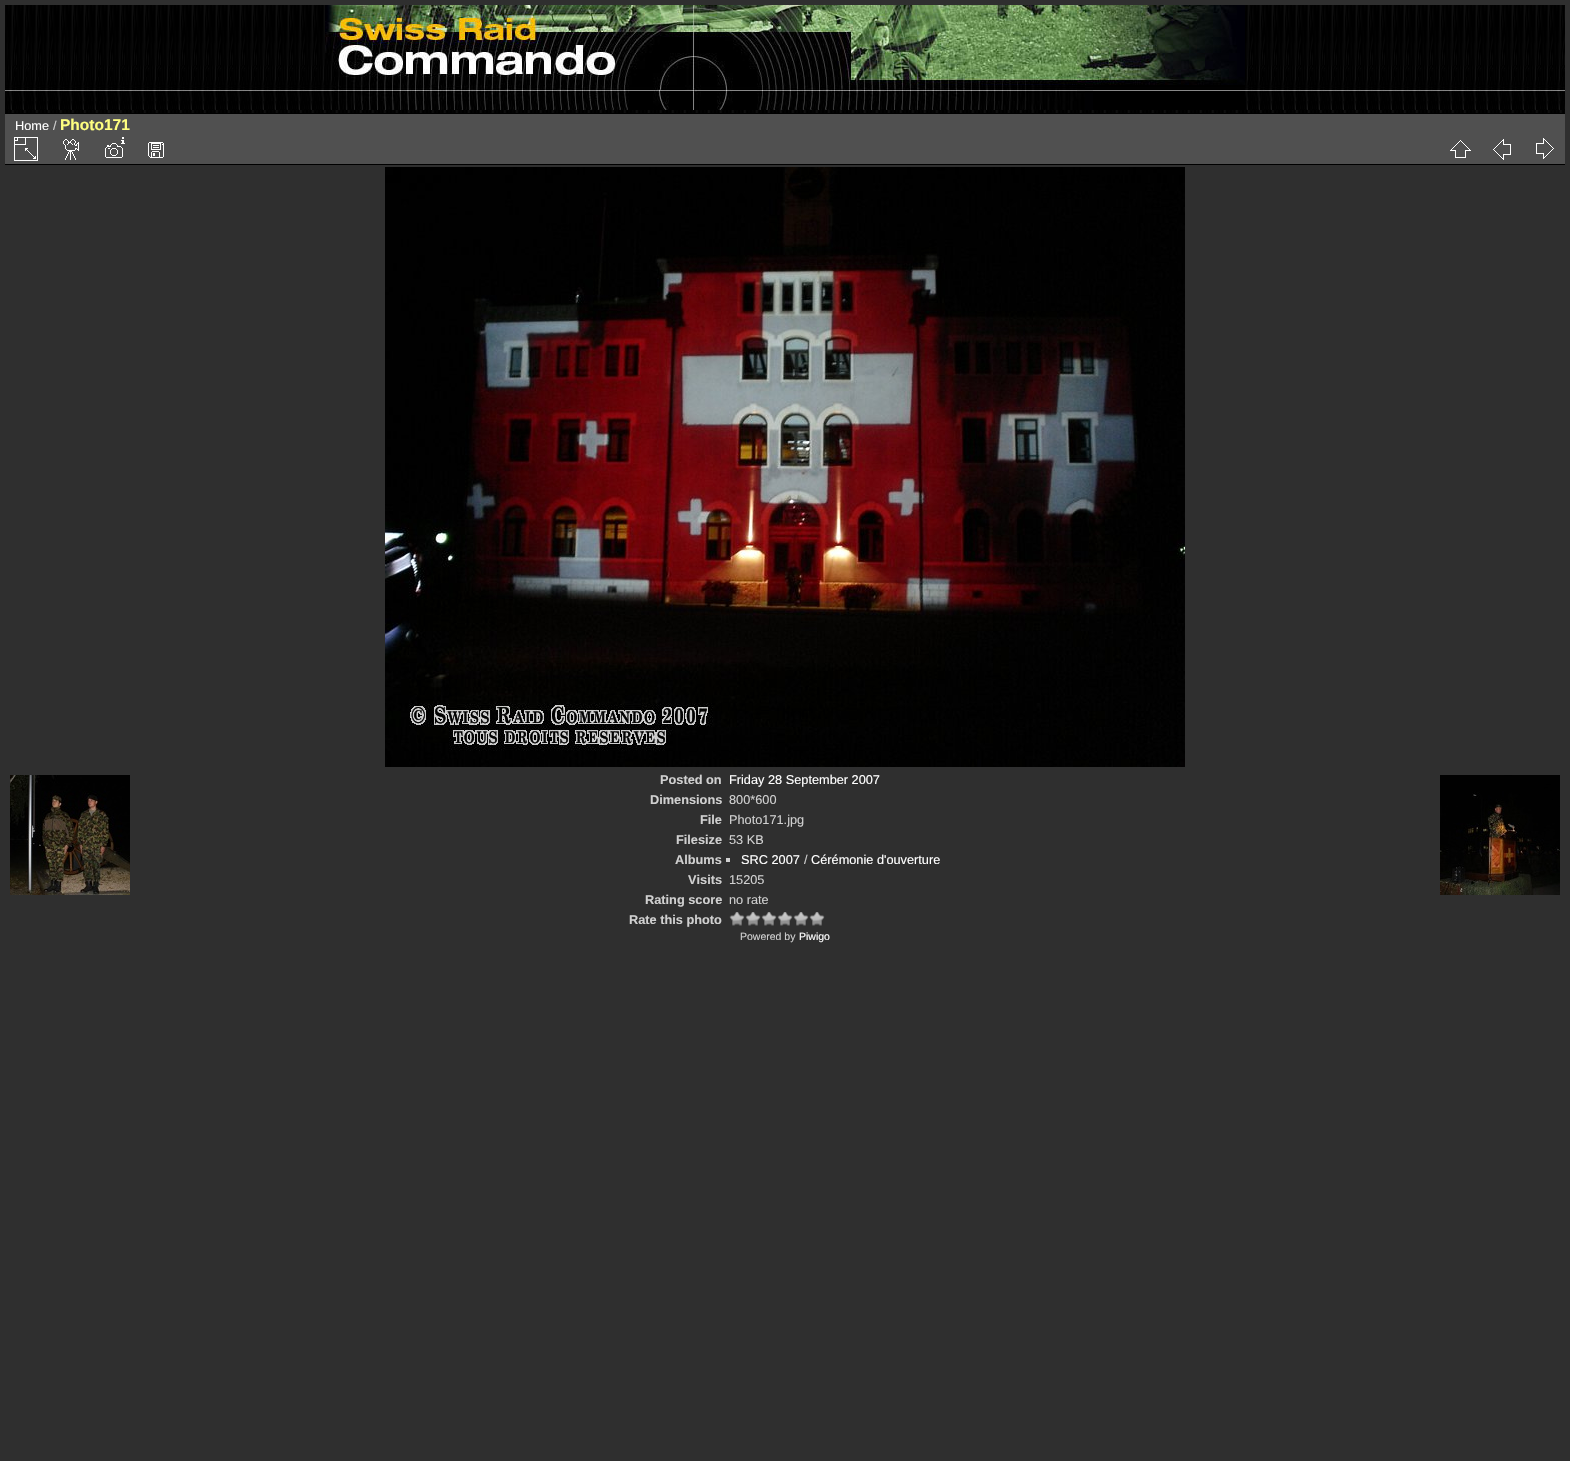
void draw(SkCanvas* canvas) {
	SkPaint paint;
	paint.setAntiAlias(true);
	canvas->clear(0xff2f2f2f);
	canvas->drawImageRect(SkImages::DeferredFromEncodedData(SkData::MakeFromFileName("img1.png")), SkRect::MakeXYWH(5, 5, 1560, 108), SkSamplingOptions());
	canvas->drawImageRect(SkImages::DeferredFromEncodedData(SkData::MakeFromFileName("img2.png")), SkRect::MakeXYWH(325, 5, 920, 105), SkSamplingOptions());
	paint.setColor(0xff505050);
	canvas->drawRect(SkRect::MakeXYWH(5, 114, 1560, 50), paint);
	paint.setColor(0xff000000);
	canvas->drawRect(SkRect::MakeXYWH(5, 164, 1560, 1), paint);
	canvas->drawImageRect(SkImages::DeferredFromEncodedData(SkData::MakeFromFileName("img3.png")), SkRect::MakeXYWH(14, 137, 24, 24), SkSamplingOptions());
	canvas->drawImageRect(SkImages::DeferredFromEncodedData(SkData::MakeFromFileName("img4.png")), SkRect::MakeXYWH(63, 139, 16, 21), SkSamplingOptions());
	canvas->drawImageRect(SkImages::DeferredFromEncodedData(SkData::MakeFromFileName("img5.png")), SkRect::MakeXYWH(105, 137, 20, 21), SkSamplingOptions());
	canvas->drawImageRect(SkImages::DeferredFromEncodedData(SkData::MakeFromFileName("img6.png")), SkRect::MakeXYWH(148, 142, 16, 16), SkSamplingOptions());
	canvas->drawImageRect(SkImages::DeferredFromEncodedData(SkData::MakeFromFileName("img7.png")), SkRect::MakeXYWH(1450, 140, 21, 18), SkSamplingOptions());
	canvas->drawImageRect(SkImages::DeferredFromEncodedData(SkData::MakeFromFileName("img8.png")), SkRect::MakeXYWH(1493, 139, 18, 21), SkSamplingOptions());
	canvas->drawImageRect(SkImages::DeferredFromEncodedData(SkData::MakeFromFileName("img9.png")), SkRect::MakeXYWH(1536, 138, 18, 21), SkSamplingOptions());
	canvas->drawRect(SkRect::MakeXYWH(5, 113, 1560, 1), paint);
	SkFont f1(fontMgr->matchFamilyStyle("Liberation Sans", SkFontStyle::Normal()), 12.75);
	f1.setSubpixel(true);
	paint.setColor(0xffffffff);
	canvas->drawString("Home", 15, 130, f1, paint);
	paint.setColor(0xffd0d0d0);
	canvas->drawString("/", 53, 130, f1, paint);
	SkFont f2(fontMgr->matchFamilyStyle("Liberation Sans", SkFontStyle::Bold()), 15.5);
	f2.setSubpixel(true);
	paint.setColor(0xffffff80);
	canvas->drawString("Photo171", 60, 130, f2, paint);
	canvas->drawImageRect(SkImages::DeferredFromEncodedData(SkData::MakeFromFileName("img10.png")), SkRect::MakeXYWH(385, 167, 800, 600), SkSamplingOptions());
	SkFont f3(fontMgr->matchFamilyStyle("Liberation Sans", SkFontStyle::Bold()), 12.75);
	f3.setSubpixel(true);
	paint.setColor(0xffd0d0d0);
	canvas->drawString("Posted on", 660, 784, f3, paint);
	paint.setColor(0xffffffff);
	canvas->drawString("Friday 28 September 2007", 729, 784, f1, paint);
	paint.setColor(0xffd0d0d0);
	canvas->drawString("Dimensions", 650, 804, f3, paint);
	canvas->drawString("800*600", 729, 804, f1, paint);
	canvas->drawString("File", 700, 824, f3, paint);
	canvas->drawString("Photo171.jpg", 729, 824, f1, paint);
	canvas->drawString("Filesize", 676, 844, f3, paint);
	canvas->drawString("53 KB", 729, 844, f1, paint);
	canvas->drawString("Albums", 675, 864, f3, paint);
	canvas->drawRect(SkRect::MakeXYWH(726, 858, 4, 4), paint);
	paint.setColor(0xffffffff);
	canvas->drawString("SRC 2007", 741, 864, f1, paint);
	paint.setColor(0xffd0d0d0);
	canvas->drawString("/", 804, 864, f1, paint);
	paint.setColor(0xffffffff);
	canvas->drawString("Cérémonie d'ouverture", 811, 864, f1, paint);
	paint.setColor(0xffd0d0d0);
	canvas->drawString("Visits", 688, 884, f3, paint);
	canvas->drawString("15205", 729, 884, f1, paint);
	canvas->drawString("Rating score", 645, 904, f3, paint);
	canvas->drawString("no rate", 729, 904, f1, paint);
	canvas->drawString("Rate this photo", 629, 924, f3, paint);
	canvas->drawImageRect(SkImages::DeferredFromEncodedData(SkData::MakeFromFileName("img11.png")), SkRect::MakeXYWH(729, 912, 16, 14), SkSamplingOptions());
	canvas->drawImageRect(SkImages::DeferredFromEncodedData(SkData::MakeFromFileName("img11.png")), SkRect::MakeXYWH(745, 912, 16, 14), SkSamplingOptions());
	canvas->drawImageRect(SkImages::DeferredFromEncodedData(SkData::MakeFromFileName("img11.png")), SkRect::MakeXYWH(761, 912, 16, 14), SkSamplingOptions());
	canvas->drawImageRect(SkImages::DeferredFromEncodedData(SkData::MakeFromFileName("img11.png")), SkRect::MakeXYWH(777, 912, 16, 14), SkSamplingOptions());
	canvas->drawImageRect(SkImages::DeferredFromEncodedData(SkData::MakeFromFileName("img11.png")), SkRect::MakeXYWH(793, 912, 16, 14), SkSamplingOptions());
	canvas->drawImageRect(SkImages::DeferredFromEncodedData(SkData::MakeFromFileName("img11.png")), SkRect::MakeXYWH(809, 912, 16, 14), SkSamplingOptions());
	canvas->drawImageRect(SkImages::DeferredFromEncodedData(SkData::MakeFromFileName("img12.png")), SkRect::MakeXYWH(10, 775, 120, 120), SkSamplingOptions());
	canvas->drawImageRect(SkImages::DeferredFromEncodedData(SkData::MakeFromFileName("img13.png")), SkRect::MakeXYWH(1440, 775, 120, 120), SkSamplingOptions());
	SkFont f4(fontMgr->matchFamilyStyle("Liberation Sans", SkFontStyle::Normal()), 10.5);
	f4.setSubpixel(true);
	canvas->drawString("Powered by", 740, 940, f4, paint);
	paint.setColor(0xffffffff);
	canvas->drawString("Piwigo", 799, 940, f4, paint);
}
